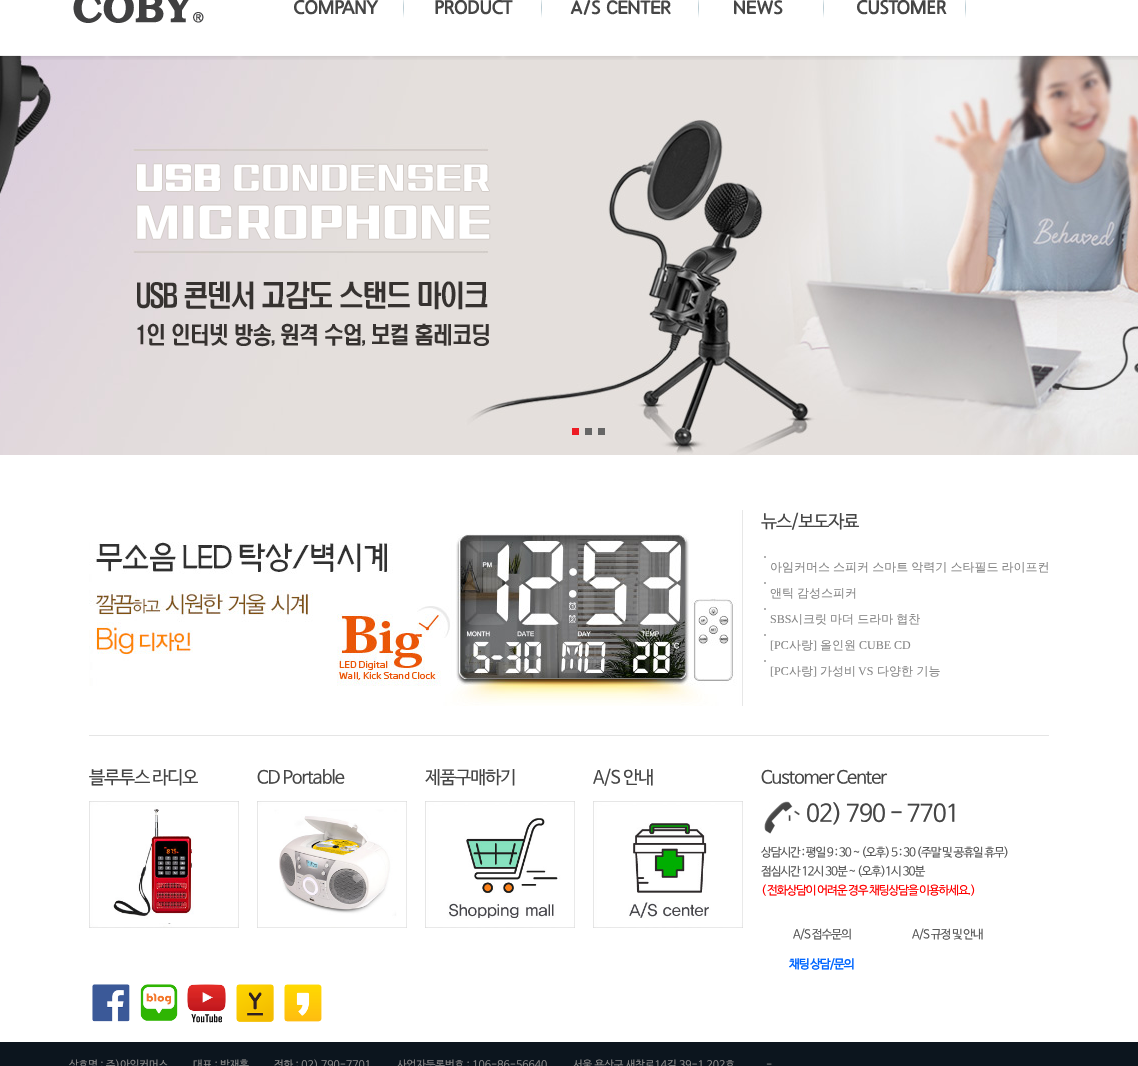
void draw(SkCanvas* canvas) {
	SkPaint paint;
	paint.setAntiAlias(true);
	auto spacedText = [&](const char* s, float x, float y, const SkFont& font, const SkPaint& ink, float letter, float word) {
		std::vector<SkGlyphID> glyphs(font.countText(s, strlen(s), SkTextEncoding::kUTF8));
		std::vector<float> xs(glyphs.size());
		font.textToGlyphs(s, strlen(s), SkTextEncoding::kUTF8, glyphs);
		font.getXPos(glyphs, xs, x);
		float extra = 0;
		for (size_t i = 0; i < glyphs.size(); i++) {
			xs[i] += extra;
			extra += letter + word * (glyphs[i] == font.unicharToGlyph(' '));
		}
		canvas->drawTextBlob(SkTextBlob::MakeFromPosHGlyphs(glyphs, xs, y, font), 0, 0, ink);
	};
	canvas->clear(0xffffffff);
	canvas->drawImageRect(SkImages::DeferredFromEncodedData(SkData::MakeFromFileName("img8.png")), SkRect::MakeXYWH(0, 55, 1138, 400), SkSamplingOptions());
	canvas->drawImageRect(SkImages::DeferredFromEncodedData(SkData::MakeFromFileName("img1.png")), SkRect::MakeXYWH(0, 55, 1138, 5), SkSamplingOptions());
	canvas->drawImageRect(SkImages::DeferredFromEncodedData(SkData::MakeFromFileName("img2.png")), SkRect::MakeXYWH(73, 0, 131, 23), SkSamplingOptions());
	canvas->drawImageRect(SkImages::DeferredFromEncodedData(SkData::MakeFromFileName("img3.png")), SkRect::MakeXYWH(294, 0, 110, 18), SkSamplingOptions());
	canvas->drawImageRect(SkImages::DeferredFromEncodedData(SkData::MakeFromFileName("img4.png")), SkRect::MakeXYWH(435, 0, 107, 18), SkSamplingOptions());
	canvas->drawImageRect(SkImages::DeferredFromEncodedData(SkData::MakeFromFileName("img5.png")), SkRect::MakeXYWH(570, 0, 129, 18), SkSamplingOptions());
	canvas->drawImageRect(SkImages::DeferredFromEncodedData(SkData::MakeFromFileName("img6.png")), SkRect::MakeXYWH(734, 0, 90, 18), SkSamplingOptions());
	canvas->drawImageRect(SkImages::DeferredFromEncodedData(SkData::MakeFromFileName("img7.png")), SkRect::MakeXYWH(857, 0, 109, 18), SkSamplingOptions());
	canvas->drawImageRect(SkImages::DeferredFromEncodedData(SkData::MakeFromFileName("img9.png")), SkRect::MakeXYWH(136, 163, 355, 184), SkSamplingOptions());
	paint.setColor(0xffed1c24);
	canvas->drawRect(SkRect::MakeXYWH(572, 428, 7, 7), paint);
	paint.setColor(0xff666666);
	canvas->drawRect(SkRect::MakeXYWH(585, 428, 7, 7), paint);
	canvas->drawRect(SkRect::MakeXYWH(598, 428, 7, 7), paint);
	paint.setColor(0xffe5e5e5);
	canvas->drawRect(SkRect::MakeXYWH(89, 735, 960, 1), paint);
	canvas->drawImageRect(SkImages::DeferredFromEncodedData(SkData::MakeFromFileName("img10.png")), SkRect::MakeXYWH(89, 510, 654, 196), SkSamplingOptions());
	SkFont f1(fontMgr->matchFamilyStyle("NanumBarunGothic", SkFontStyle::Normal()), 18);
	f1.setSubpixel(true);
	paint.setColor(0xff464646);
	spacedText("블루투스 라디오", 89, 783, f1, paint, -1, 0);
	canvas->drawImageRect(SkImages::DeferredFromEncodedData(SkData::MakeFromFileName("img11.png")), SkRect::MakeXYWH(89, 801, 150, 127), SkSamplingOptions());
	spacedText("CD Portable", 257, 783, f1, paint, -1, 0);
	canvas->drawImageRect(SkImages::DeferredFromEncodedData(SkData::MakeFromFileName("img12.png")), SkRect::MakeXYWH(257, 801, 150, 127), SkSamplingOptions());
	spacedText("제품구매하기", 425, 783, f1, paint, -1, 0);
	canvas->drawImageRect(SkImages::DeferredFromEncodedData(SkData::MakeFromFileName("img13.png")), SkRect::MakeXYWH(425, 801, 150, 127), SkSamplingOptions());
	spacedText("A/S 안내", 593, 783, f1, paint, -1, 0);
	canvas->drawImageRect(SkImages::DeferredFromEncodedData(SkData::MakeFromFileName("img14.png")), SkRect::MakeXYWH(593, 801, 150, 127), SkSamplingOptions());
	spacedText("뉴스/보도자료", 761, 527, f1, paint, -1, 0);
	paint.setColor(0xffb1b1b1);
	canvas->drawRect(SkRect::MakeXYWH(764, 556, 2, 2), paint);
	SkFont f2(fontMgr->matchFamilyStyle("WenQuanYi Zen Hei", SkFontStyle(500, SkFontStyle::kNormal_Width, SkFontStyle::kUpright_Slant)), 12);
	f2.setSubpixel(true);
	paint.setColor(0xff878787);
	spacedText("아임커머스 스피커 스마트 악력기 스타필드 라이프컨", 770, 571, f2, paint, 0, -0.5);
	paint.setColor(0xffb1b1b1);
	canvas->drawRect(SkRect::MakeXYWH(764, 582, 2, 2), paint);
	paint.setColor(0xff878787);
	spacedText("앤틱 감성스피커", 770, 597, f2, paint, 0, -0.5);
	paint.setColor(0xffb1b1b1);
	canvas->drawRect(SkRect::MakeXYWH(764, 608, 2, 2), paint);
	SkFont f3(fontMgr->matchFamilyStyle("Liberation Serif", SkFontStyle::Normal()), 12);
	f3.setSubpixel(true);
	paint.setColor(0xff878787);
	canvas->drawString("SBS", 770, 623, f3, paint);
	spacedText("시크릿 마더 드라마 협찬", 791, 623, f2, paint, 0, -0.5);
	paint.setColor(0xffb1b1b1);
	canvas->drawRect(SkRect::MakeXYWH(764, 634, 2, 2), paint);
	paint.setColor(0xff878787);
	canvas->drawString("[PC", 770, 649, f3, paint);
	canvas->drawString("사랑", 789, 649, f2, paint);
	canvas->drawString("]", 813, 649, f3, paint);
	canvas->drawString("올인원", 820, 649, f2, paint);
	canvas->drawString("CUBE CD", 859, 649, f3, paint);
	paint.setColor(0xffb1b1b1);
	canvas->drawRect(SkRect::MakeXYWH(764, 660, 2, 2), paint);
	paint.setColor(0xff878787);
	canvas->drawString("[PC", 770, 675, f3, paint);
	canvas->drawString("사랑", 789, 675, f2, paint);
	canvas->drawString("]", 813, 675, f3, paint);
	canvas->drawString("가성비", 820, 675, f2, paint);
	canvas->drawString("VS", 858, 675, f3, paint);
	canvas->drawString("다양한 기능", 877, 675, f2, paint);
	paint.setColor(0xff464646);
	spacedText("Customer Center", 761, 783, f1, paint, -1, 0);
	canvas->drawImageRect(SkImages::DeferredFromEncodedData(SkData::MakeFromFileName("img15.png")), SkRect::MakeXYWH(764, 801, 36, 33), SkSamplingOptions());
	SkFont f4(fontMgr->matchFamilyStyle("NanumBarunGothic", SkFontStyle::Normal()), 24);
	f4.setSubpixel(true);
	spacedText("02) 790 - 7701", 806, 821, f4, paint, -1, 0);
	SkFont f5(fontMgr->matchFamilyStyle("NanumBarunGothic", SkFontStyle::Normal()), 12);
	f5.setSubpixel(true);
	paint.setColor(0xff595959);
	spacedText("상담시간 : 평일 9 : 30 ~ (오후) 5 : 30 (주말 및 공휴일 휴무)", 761, 856, f5, paint, -1, 0);
	spacedText("점심시간 12시 30분 ~ (오후)1시 30분", 761, 875, f5, paint, -1, 0);
	paint.setColor(0xffff0000);
	spacedText("( 전화상담이 어려운 경우 채팅상담을 이용하세요.)", 761, 894, f5, paint, -1, 0);
	paint.setColor(0xff595959);
	spacedText("A/S 접수문의", 793, 938, f5, paint, -1, 0);
	spacedText("A/S 규정 및 안내", 912, 938, f5, paint, -1, 0);
	SkFont f6(fontMgr->matchFamilyStyle("NanumBarunGothic", SkFontStyle::Bold()), 12);
	f6.setSubpixel(true);
	paint.setColor(0xff0066ff);
	spacedText("채팅 상담/문의", 789, 968, f6, paint, -1, 0);
	canvas->drawImageRect(SkImages::DeferredFromEncodedData(SkData::MakeFromFileName("img16.png")), SkRect::MakeXYWH(92, 984, 38, 38), SkSamplingOptions());
	canvas->drawImageRect(SkImages::DeferredFromEncodedData(SkData::MakeFromFileName("img17.png")), SkRect::MakeXYWH(140, 984, 38, 37), SkSamplingOptions());
	canvas->drawImageRect(SkImages::DeferredFromEncodedData(SkData::MakeFromFileName("img18.png")), SkRect::MakeXYWH(187, 984, 39, 39), SkSamplingOptions());
	canvas->drawImageRect(SkImages::DeferredFromEncodedData(SkData::MakeFromFileName("img19.png")), SkRect::MakeXYWH(236, 984, 38, 38), SkSamplingOptions());
	canvas->drawImageRect(SkImages::DeferredFromEncodedData(SkData::MakeFromFileName("img20.png")), SkRect::MakeXYWH(284, 984, 38, 38), SkSamplingOptions());
	paint.setColor(0xff0c151e);
	canvas->drawRect(SkRect::MakeXYWH(0, 1042, 1138, 24), paint);
	SkFont f7(fontMgr->matchFamilyStyle("NanumBarunGothic", SkFontStyle::Normal()), 10.75);
	f7.setSubpixel(true);
	paint.setColor(0xff878787);
	canvas->drawString("상호명 : 주)아임커머스", 69, 1068, f7, paint);
	canvas->drawString("대표 : 박재홍", 193, 1068, f7, paint);
	canvas->drawString("전화 : 02) 790-7701", 274, 1068, f7, paint);
	canvas->drawString("사업자등록번호 : 106-86-56640", 397, 1068, f7, paint);
	canvas->drawString("서울 용산구 새창로14길 39-1 202호", 573, 1068, f7, paint);
	canvas->drawString("-", 766, 1068, f7, paint);
}
